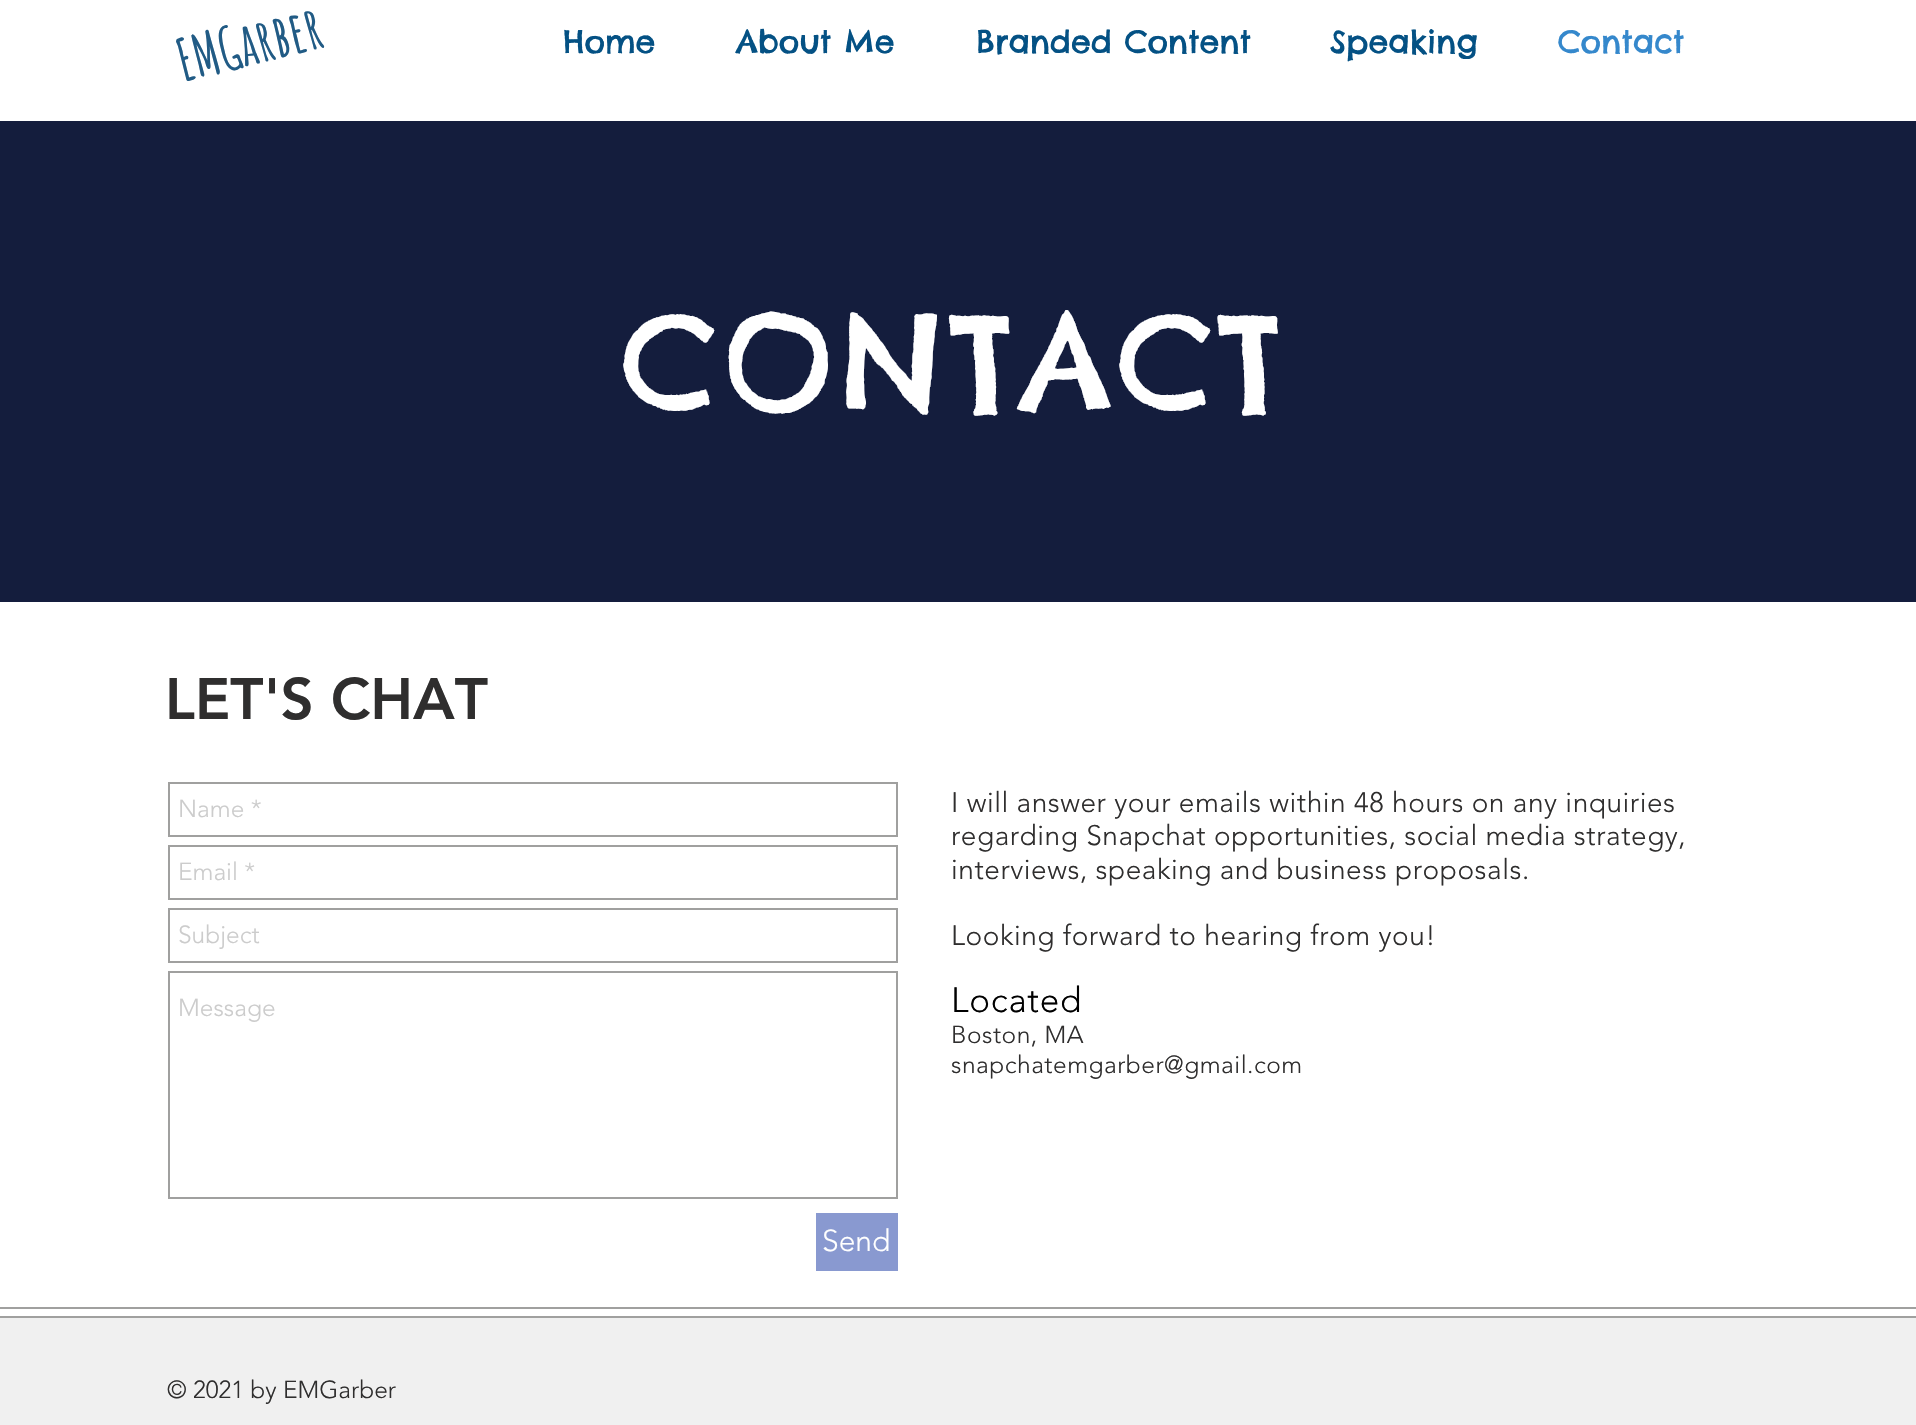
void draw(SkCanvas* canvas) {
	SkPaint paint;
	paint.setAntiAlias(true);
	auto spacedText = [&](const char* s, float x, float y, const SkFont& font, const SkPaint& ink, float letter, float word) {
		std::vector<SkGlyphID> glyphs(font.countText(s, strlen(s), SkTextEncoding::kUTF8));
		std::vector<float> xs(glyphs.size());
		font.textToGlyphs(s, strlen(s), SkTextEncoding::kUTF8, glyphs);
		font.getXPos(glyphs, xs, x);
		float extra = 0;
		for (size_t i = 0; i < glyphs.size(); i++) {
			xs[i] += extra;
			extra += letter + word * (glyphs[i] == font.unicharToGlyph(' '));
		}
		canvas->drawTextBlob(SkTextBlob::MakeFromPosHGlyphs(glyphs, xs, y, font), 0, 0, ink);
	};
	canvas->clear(0xffffffff);
	SkFont f1(fontMgr->matchFamilyStyle("Amatic SC", SkFontStyle::Bold()), 57.75);
	f1.setSubpixel(true);
	paint.setColor(0xff215b85);
	canvas->save();
	canvas->rotate(-14.1, 183, 82);
	canvas->drawString("EMGarber", 183, 82, f1, paint);
	canvas->restore();
	SkFont f2(fontMgr->matchFamilyStyle("Chelsea Market", SkFontStyle::Normal()), 31.5);
	f2.setSubpixel(true);
	paint.setColor(0xff045184);
	canvas->drawString("Home", 563, 53, f2, paint);
	canvas->drawString("About Me", 736, 53, f2, paint);
	canvas->drawString("Branded Content", 976, 53, f2, paint);
	canvas->drawString("Speaking", 1330, 53, f2, paint);
	paint.setColor(0xff3588cc);
	canvas->drawString("Contact", 1558, 53, f2, paint);
	paint.setColor(0xff141d3d);
	canvas->drawRect(SkRect::MakeXYWH(0, 121, 1916, 481), paint);
	SkFont f3(fontMgr->matchFamilyStyle("Chelsea Market", SkFontStyle::Normal()), 131.25);
	f3.setSubpixel(true);
	paint.setColor(0xffffffff);
	spacedText("CONTACT", 622, 410, f3, paint, 6.5, 0);
	SkFont f4(fontMgr->matchFamilyStyle("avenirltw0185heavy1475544", SkFontStyle(900, SkFontStyle::kNormal_Width, SkFontStyle::kUpright_Slant)), 57.75);
	f4.setSubpixel(true);
	paint.setColor(0xff2f2e2e);
	canvas->drawString("LET'S CHAT", 165, 719, f4, paint);
	paint.setStroke(true);
	paint.setStrokeWidth(2);
	paint.setColor(0xffa0a09f);
	canvas->drawRect(SkRect::MakeXYWH(169, 783, 728, 53), paint);
	SkFont f5(fontMgr->matchFamilyStyle("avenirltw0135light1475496", SkFontStyle(300, SkFontStyle::kNormal_Width, SkFontStyle::kUpright_Slant)), 24.5);
	f5.setSubpixel(true);
	paint.setStroke(false);
	paint.setColor(0xffcccccc);
	canvas->drawString("Name *", 178, 817, f5, paint);
	paint.setStroke(true);
	paint.setColor(0xffa0a09f);
	canvas->drawRect(SkRect::MakeXYWH(169, 846, 728, 53), paint);
	paint.setStroke(false);
	paint.setColor(0xffcccccc);
	canvas->drawString("Email *", 178, 880, f5, paint);
	paint.setStroke(true);
	paint.setColor(0xffa0a09f);
	canvas->drawRect(SkRect::MakeXYWH(169, 909, 728, 53), paint);
	paint.setStroke(false);
	paint.setColor(0xffcccccc);
	canvas->drawString("Subject", 178, 943, f5, paint);
	paint.setStroke(true);
	paint.setColor(0xffa0a09f);
	canvas->drawRect(SkRect::MakeXYWH(169, 972, 728, 226), paint);
	paint.setStroke(false);
	paint.setColor(0xffcccccc);
	canvas->drawString("Message", 178, 1016, f5, paint);
	paint.setColor(0xff8999d0);
	canvas->drawRect(SkRect::MakeXYWH(816, 1213, 82, 58), paint);
	SkFont f6(fontMgr->matchFamilyStyle("avenirltw0135light1475496", SkFontStyle(300, SkFontStyle::kNormal_Width, SkFontStyle::kUpright_Slant)), 30);
	f6.setSubpixel(true);
	paint.setColor(0xffffffff);
	canvas->drawString("Send", 822, 1251, f6, paint);
	SkFont f7(fontMgr->matchFamilyStyle("avenirltw0135light1475496", SkFontStyle(300, SkFontStyle::kNormal_Width, SkFontStyle::kUpright_Slant)), 28);
	f7.setSubpixel(true);
	paint.setColor(0xff2f2e2e);
	spacedText("I will answer your emails within 48 hours on any inquiries", 951, 812, f7, paint, 0.55, 0);
	spacedText("regarding Snapchat opportunities, social media strategy,", 951, 845, f7, paint, 0.55, 0);
	spacedText("interviews, speaking and business proposals.", 951, 879, f7, paint, 0.55, 0);
	spacedText("Looking forward to hearing from you!", 951, 945, f7, paint, 0.55, 0);
	SkFont f8(fontMgr->matchFamilyStyle("avenirltw0135light1475496", SkFontStyle(300, SkFontStyle::kNormal_Width, SkFontStyle::kUpright_Slant)), 35);
	f8.setSubpixel(true);
	paint.setColor(0xff000000);
	spacedText("Located", 951, 1012, f8, paint, 0.75, 0);
	paint.setColor(0xff2f2e2e);
	spacedText("Boston, MA", 951, 1043, f5, paint, 0.5, 0);
	spacedText("snapchatemgarber@gmail.com", 951, 1073, f5, paint, 0.5, 0);
	paint.setColor(0xffa0a09f);
	canvas->drawRect(SkRect::MakeXYWH(0, 1307, 1916, 2), paint);
	paint.setColor(0xfff0f0f0);
	canvas->drawRect(SkRect::MakeXYWH(0, 1318, 1916, 107), paint);
	paint.setColor(0xffa0a09f);
	canvas->drawRect(SkRect::MakeXYWH(0, 1316, 1916, 2), paint);
	paint.setColor(0xff2f2e2e);
	canvas->drawString("© 2021 by EMGarber", 167, 1398, f5, paint);
}
